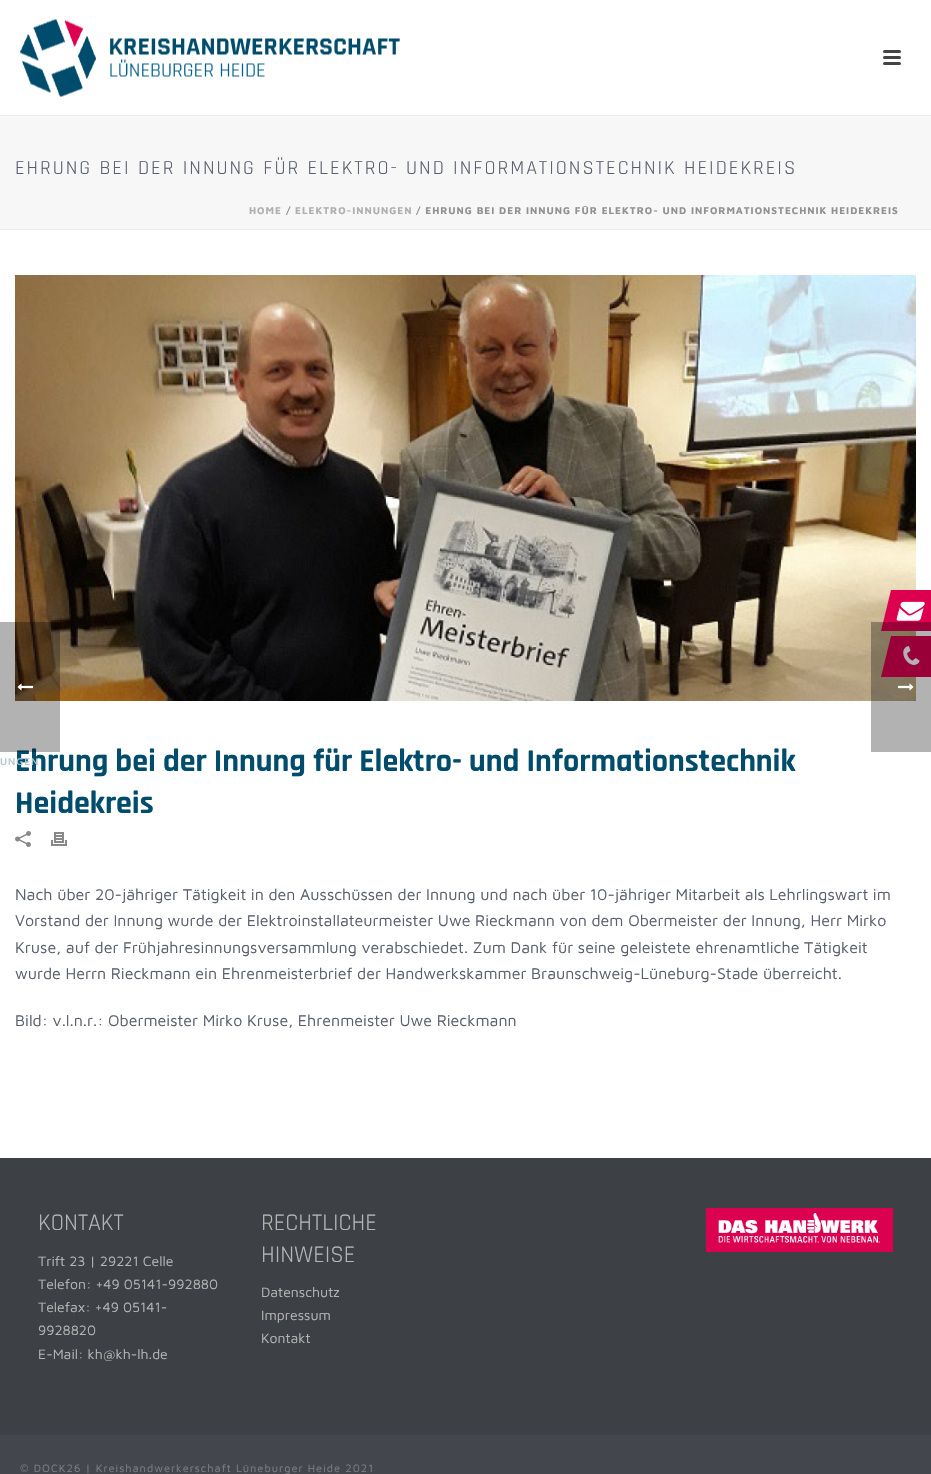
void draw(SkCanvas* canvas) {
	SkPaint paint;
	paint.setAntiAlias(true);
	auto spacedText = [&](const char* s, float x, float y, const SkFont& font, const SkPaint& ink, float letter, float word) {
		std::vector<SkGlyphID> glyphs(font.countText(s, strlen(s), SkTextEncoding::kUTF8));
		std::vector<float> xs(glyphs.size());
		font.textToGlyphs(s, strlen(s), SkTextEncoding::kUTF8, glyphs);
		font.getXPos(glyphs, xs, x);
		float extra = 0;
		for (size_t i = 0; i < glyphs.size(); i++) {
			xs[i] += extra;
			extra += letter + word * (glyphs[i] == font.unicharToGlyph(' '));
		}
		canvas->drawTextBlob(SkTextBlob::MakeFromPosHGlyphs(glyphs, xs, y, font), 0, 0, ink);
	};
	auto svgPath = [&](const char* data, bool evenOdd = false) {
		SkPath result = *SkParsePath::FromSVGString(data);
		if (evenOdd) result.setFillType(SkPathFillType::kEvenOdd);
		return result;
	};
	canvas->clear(0xffffffff);
	paint.setColor(0xfff7f7f7);
	canvas->drawRect(SkRect::MakeXYWH(0, 116, 931, 113), paint);
	paint.setColor(0xffededed);
	canvas->drawRect(SkRect::MakeXYWH(0, 229, 931, 1), paint);
	canvas->drawRect(SkRect::MakeXYWH(0, 115, 931, 1), paint);
	canvas->drawImageRect(SkImages::DeferredFromEncodedData(SkData::MakeFromFileName("img1.png")), SkRect::MakeXYWH(20, 19, 380, 78), SkSamplingOptions());
	paint.setColor(0xff444444);
	canvas->drawRoundRect(SkRect::MakeXYWH(883, 50, 18, 3), 1.5, 1.5, paint);
	canvas->drawRoundRect(SkRect::MakeXYWH(883, 56, 18, 3), 1.5, 1.5, paint);
	canvas->drawRoundRect(SkRect::MakeXYWH(883, 62, 18, 3), 1.5, 1.5, paint);
	SkFont f1(fontMgr->matchFamilyStyle("Rajdhani", SkFontStyle::Normal()), 20);
	f1.setSubpixel(true);
	paint.setColor(0xff595f6e);
	spacedText("EHRUNG BEI DER INNUNG FÜR ELEKTRO- UND INFORMATIONSTECHNIK HEIDEKREIS", 15, 174, f1, paint, 2, 0);
	SkFont f2(fontMgr->matchFamilyStyle("Maven Pro", SkFontStyle::Bold()), 10);
	f2.setSubpixel(true);
	paint.setColor(0xffafafaf);
	spacedText("HOME", 249, 214, f2, paint, 1, 0);
	paint.setColor(0xff919191);
	spacedText("/", 286, 214, f2, paint, 1, 0);
	paint.setColor(0xffafafaf);
	spacedText("ELEKTRO-INNUNGEN", 295, 214, f2, paint, 1, 0);
	paint.setColor(0xff919191);
	spacedText("/ EHRUNG BEI DER INNUNG FÜR ELEKTRO- UND INFORMATIONSTECHNIK HEIDEKREIS", 416, 214, f2, paint, 1, 0);
	canvas->drawImageRect(SkImages::DeferredFromEncodedData(SkData::MakeFromFileName("img2.png")), SkRect::MakeXYWH(15, 275, 901, 426), SkSamplingOptions());
	SkFont f3(fontMgr->matchFamilyStyle("Rajdhani", SkFontStyle::Bold()), 32);
	f3.setSubpixel(true);
	paint.setColor(0xff004c6c);
	canvas->drawString("Ehrung bei der Innung für Elektro- und Informationstechnik", 15, 771, f3, paint);
	canvas->drawString("Heidekreis", 15, 813, f3, paint);
	canvas->drawImageRect(SkImages::DeferredFromEncodedData(SkData::MakeFromFileName("img3.png")), SkRect::MakeXYWH(15, 831, 16, 16), SkSamplingOptions());
	canvas->drawImageRect(SkImages::DeferredFromEncodedData(SkData::MakeFromFileName("img4.png")), SkRect::MakeXYWH(51, 832, 16, 14), SkSamplingOptions());
	SkFont f4(fontMgr->matchFamilyStyle("Maven Pro", SkFontStyle::Normal()), 16);
	f4.setSubpixel(true);
	paint.setColor(0xff595f6e);
	canvas->drawString("Nach über 20-jähriger Tätigkeit in den Ausschüssen der Innung und nach über 10-jähriger Mitarbeit als Lehrlingswart im", 15, 900, f4, paint);
	canvas->drawString("Vorstand der Innung wurde der Elektroinstallateurmeister Uwe Rieckmann von dem Obermeister der Innung, Herr Mirko", 15, 926, f4, paint);
	canvas->drawString("Kruse, auf der Frühjahresinnungsversammlung verabschiedet. Zum Dank für seine geleistete ehrenamtliche Tätigkeit", 15, 953, f4, paint);
	canvas->drawString("wurde Herrn Rieckmann ein Ehrenmeisterbrief der Handwerkskammer Braunschweig-Lüneburg-Stade überreicht.", 15, 979, f4, paint);
	canvas->drawString("Bild: v.l.n.r.: Obermeister Mirko Kruse, Ehrenmeister Uwe Rieckmann", 15, 1026, f4, paint);
	paint.setColor(0xff3d4045);
	canvas->drawRect(SkRect::MakeXYWH(0, 1158, 931, 277), paint);
	SkFont f5(fontMgr->matchFamilyStyle("Rajdhani", SkFontStyle::Normal()), 24);
	f5.setSubpixel(true);
	paint.setColor(0xffb5b5b5);
	canvas->drawString("KONTAKT", 38, 1230, f5, paint);
	SkFont f6(fontMgr->matchFamilyStyle("Maven Pro", SkFontStyle::Normal()), 14);
	f6.setSubpixel(true);
	canvas->drawString("Trift 23 | 29221 Celle", 38, 1266, f6, paint);
	canvas->drawString("Telefon: +49 05141-992880", 38, 1289, f6, paint);
	canvas->drawString("Telefax: +49 05141-", 38, 1312, f6, paint);
	canvas->drawString("9928820", 38, 1335, f6, paint);
	canvas->drawString("E-Mail: kh@kh-lh.de", 38, 1359, f6, paint);
	canvas->drawString("RECHTLICHE", 261, 1230, f5, paint);
	canvas->drawString("HINWEISE", 261, 1262, f5, paint);
	canvas->drawString("Datenschutz", 261, 1297, f6, paint);
	canvas->drawString("Impressum", 261, 1320, f6, paint);
	canvas->drawString("Kontakt", 261, 1343, f6, paint);
	canvas->drawImageRect(SkImages::DeferredFromEncodedData(SkData::MakeFromFileName("img5.png")), SkRect::MakeXYWH(706, 1208, 187, 44), SkSamplingOptions());
	paint.setColor(0xff43474d);
	canvas->drawRect(SkRect::MakeXYWH(0, 1435, 931, 39), paint);
	SkFont f7(fontMgr->matchFamilyStyle("Maven Pro", SkFontStyle::Normal()), 11);
	f7.setSubpixel(true);
	paint.setColor(0xff7d8083);
	spacedText("© DOCK26 | Kreishandwerkerschaft Lüneburger Heide 2021", 20, 1472, f7, paint, 1, 0);
	paint.setColor(0xffdd004f);
	canvas->drawPath(svgPath("M891 590H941L931 631H881Z"), paint);
	canvas->drawImageRect(SkImages::DeferredFromEncodedData(SkData::MakeFromFileName("img6.png")), SkRect::MakeXYWH(896, 601, 29, 20), SkSamplingOptions());
	canvas->drawPath(svgPath("M891 636H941L931 677H881Z"), paint);
	canvas->drawImageRect(SkImages::DeferredFromEncodedData(SkData::MakeFromFileName("img7.png")), SkRect::MakeXYWH(903, 646, 17, 19), SkSamplingOptions());
	paint.setColor(0x4d000000);
	canvas->drawRect(SkRect::MakeXYWH(871, 622, 60, 130), paint);
	canvas->drawImageRect(SkImages::DeferredFromEncodedData(SkData::MakeFromFileName("img8.png")), SkRect::MakeXYWH(898, 683, 16, 8), SkSamplingOptions());
	canvas->drawRect(SkRect::MakeXYWH(0, 622, 60, 130), paint);
	canvas->drawImageRect(SkImages::DeferredFromEncodedData(SkData::MakeFromFileName("img9.png")), SkRect::MakeXYWH(17, 683, 16, 8), SkSamplingOptions());
	SkFont f8(fontMgr->matchFamilyStyle("Maven Pro", SkFontStyle(500, SkFontStyle::kNormal_Width, SkFontStyle::kUpright_Slant)), 10);
	f8.setSubpixel(true);
	paint.setColor(0xffaec6d0);
	spacedText("UNGEN", 0, 765, f8, paint, 1, 0);
}
